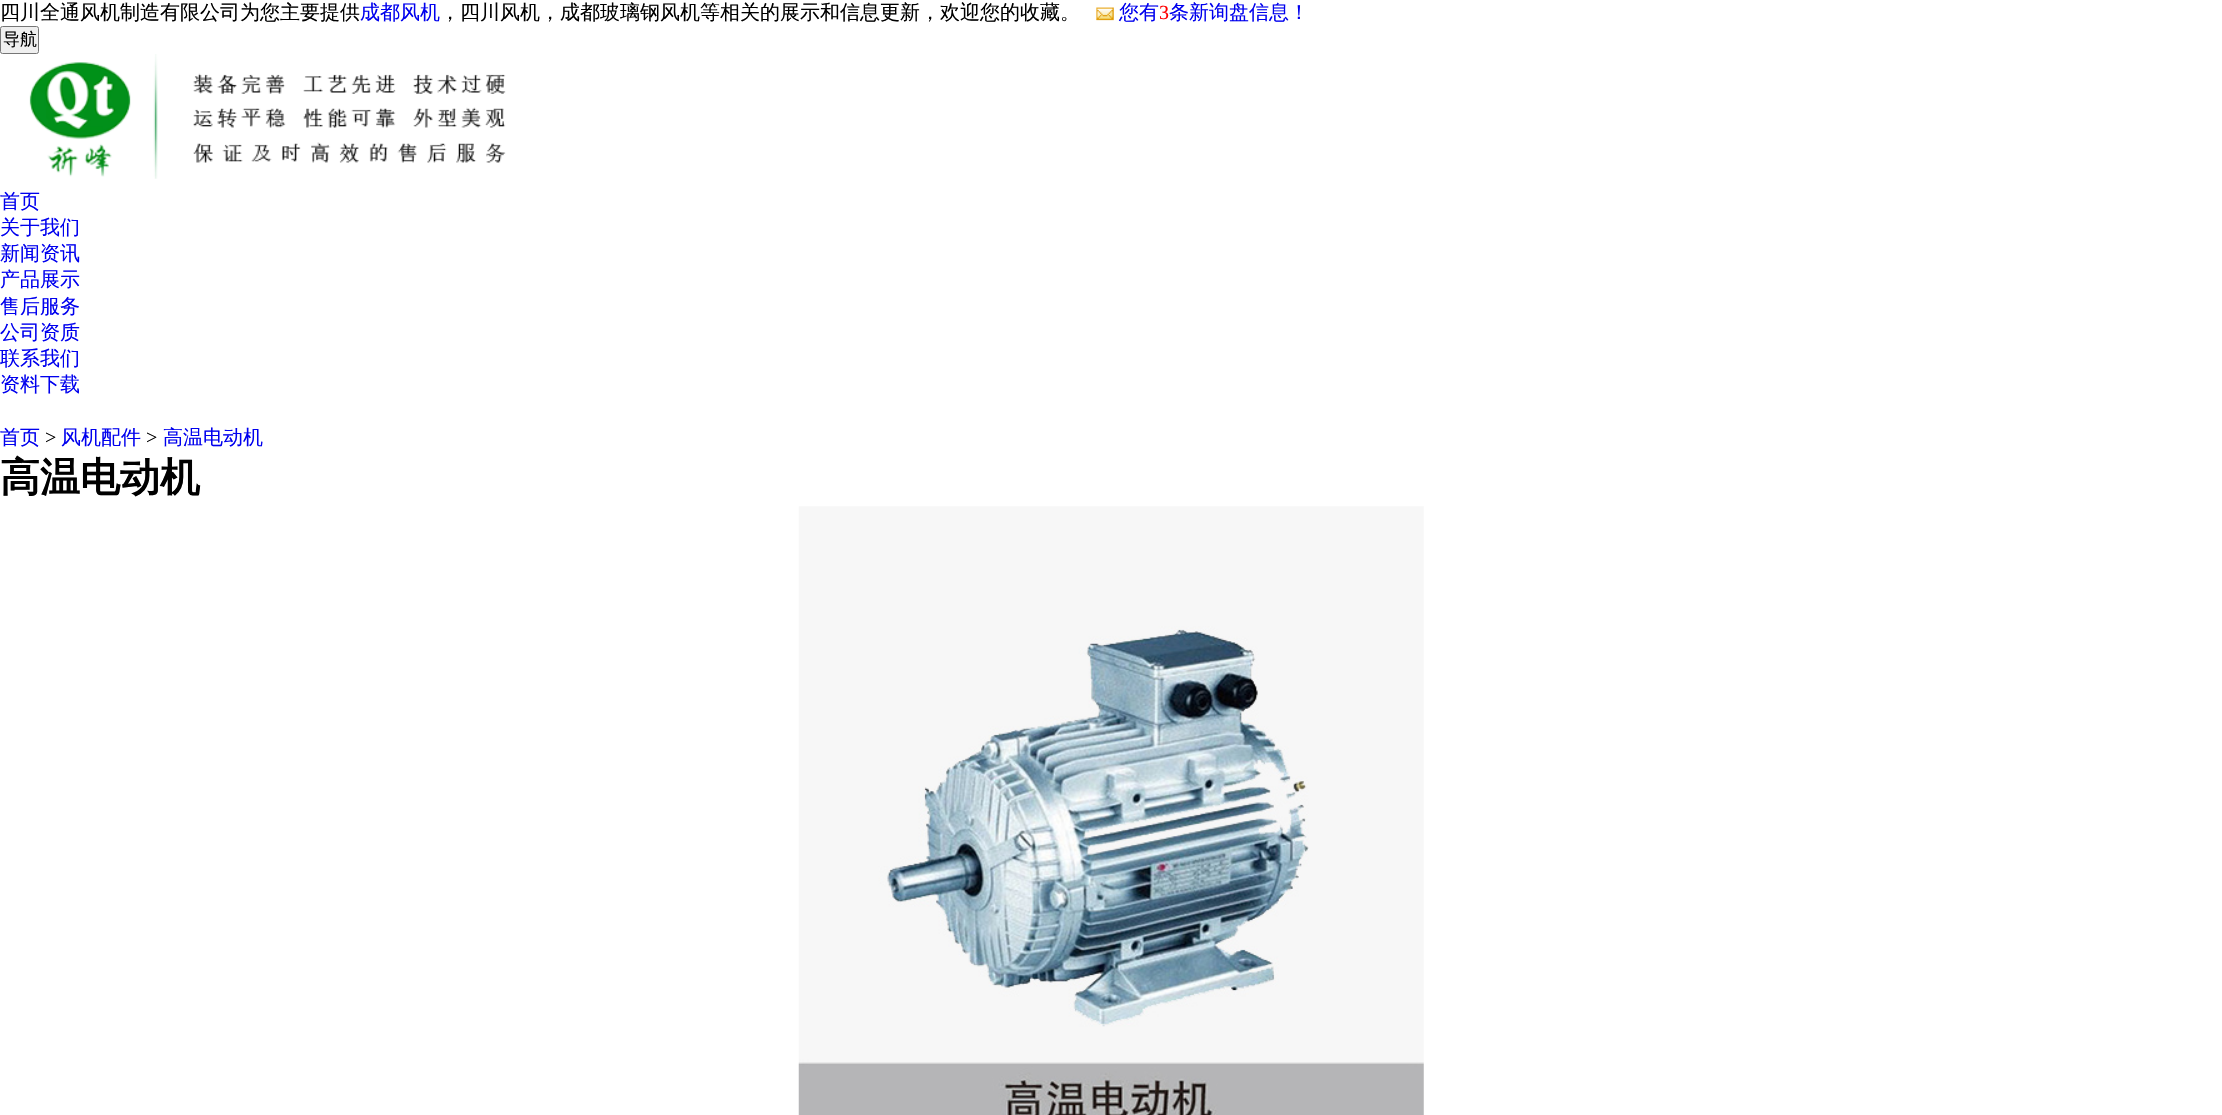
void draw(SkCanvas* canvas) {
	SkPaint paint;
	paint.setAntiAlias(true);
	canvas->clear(0xffffffff);
	SkFont f1(fontMgr->matchFamilyStyle("WenQuanYi Zen Hei", SkFontStyle(500, SkFontStyle::kNormal_Width, SkFontStyle::kUpright_Slant)), 20);
	f1.setSubpixel(true);
	paint.setColor(0xff000000);
	canvas->drawString("四川全通风机制造有限公司为您主要提供", 0, 19, f1, paint);
	paint.setColor(0xff0000ee);
	canvas->drawString("成都风机", 360, 19, f1, paint);
	paint.setColor(0xff000000);
	canvas->drawString("，四川风机，成都玻璃钢风机等相关的展示和信息更新，欢迎您的收藏。", 440, 19, f1, paint);
	canvas->drawImageRect(SkImages::DeferredFromEncodedData(SkData::MakeFromFileName("img1.png")), SkRect::MakeXYWH(1096, 7, 18, 14), SkSamplingOptions());
	paint.setColor(0xff0000ee);
	canvas->drawString("您有", 1119, 19, f1, paint);
	SkFont f2(fontMgr->matchFamilyStyle("Liberation Serif", SkFontStyle::Normal()), 20);
	f2.setSubpixel(true);
	paint.setColor(0xffff0000);
	canvas->drawString("3", 1159, 19, f2, paint);
	paint.setColor(0xff0000ee);
	canvas->drawString("条新询盘信息！", 1169, 19, f1, paint);
	paint.setColor(0xffefefef);
	canvas->drawRoundRect(SkRect::MakeXYWH(0.5, 26.5, 38, 27), 2, 2, paint);
	paint.setStroke(true);
	paint.setStrokeWidth(1);
	paint.setColor(0xff767676);
	canvas->drawRoundRect(SkRect::MakeXYWH(0.5, 26.5, 38, 27), 2, 2, paint);
	SkFont f3(fontMgr->matchFamilyStyle("WenQuanYi Zen Hei", SkFontStyle(500, SkFontStyle::kNormal_Width, SkFontStyle::kUpright_Slant)), 17);
	f3.setSubpixel(true);
	paint.setStroke(false);
	paint.setColor(0xff000000);
	canvas->drawString("导航", 3, 45, f3, paint);
	canvas->drawImageRect(SkImages::DeferredFromEncodedData(SkData::MakeFromFileName("img2.png")), SkRect::MakeXYWH(29, 54, 477, 125), SkSamplingOptions());
	paint.setColor(0xff0000ee);
	canvas->drawString("首页", 0, 208, f1, paint);
	canvas->drawString("关于我们", 0, 234, f1, paint);
	canvas->drawString("新闻资讯", 0, 260, f1, paint);
	canvas->drawString("产品展示", 0, 286, f1, paint);
	canvas->drawString("售后服务", 0, 313, f1, paint);
	canvas->drawString("公司资质", 0, 339, f1, paint);
	canvas->drawString("联系我们", 0, 365, f1, paint);
	canvas->drawString("资料下载", 0, 391, f1, paint);
	canvas->drawString("首页", 0, 444, f1, paint);
	paint.setColor(0xff000000);
	canvas->drawString(">", 45, 444, f2, paint);
	paint.setColor(0xff0000ee);
	canvas->drawString("风机配件", 61, 444, f1, paint);
	paint.setColor(0xff000000);
	canvas->drawString(">", 146, 444, f2, paint);
	paint.setColor(0xff0000ee);
	canvas->drawString("高温电动机", 163, 444, f1, paint);
	SkFont f4(fontMgr->matchFamilyStyle("WenQuanYi Zen Hei", SkFontStyle::Bold()), 40);
	f4.setSubpixel(true);
	paint.setColor(0xff000000);
	canvas->drawString("高温电动机", 0, 491, f4, paint);
	canvas->drawImageRect(SkImages::DeferredFromEncodedData(SkData::MakeFromFileName("img3.png")), SkRect::MakeXYWH(798, 506, 626, 609), SkSamplingOptions());
}
